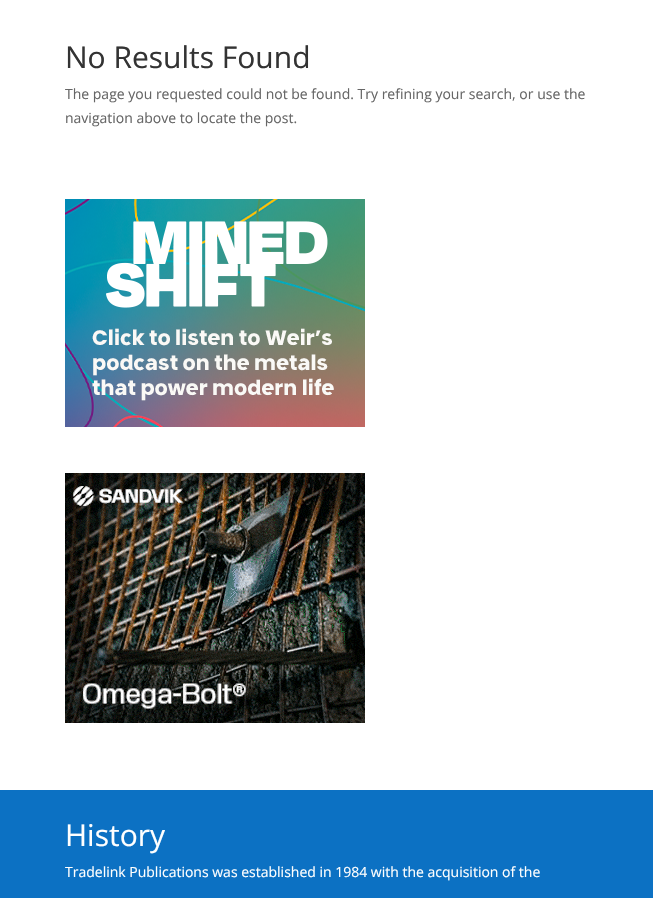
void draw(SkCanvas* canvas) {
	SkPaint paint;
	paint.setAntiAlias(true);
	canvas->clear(0xffffffff);
	SkFont f1(fontMgr->matchFamilyStyle("Open Sans", SkFontStyle::Normal()), 30);
	f1.setSubpixel(true);
	paint.setColor(0xff333333);
	canvas->drawString("No Results Found", 65, 68, f1, paint);
	SkFont f2(fontMgr->matchFamilyStyle("Open Sans", SkFontStyle::Normal()), 14);
	f2.setSubpixel(true);
	paint.setColor(0xff666666);
	canvas->drawString("The page you requested could not be found. Try refining your search, or use the", 65, 99, f2, paint);
	canvas->drawString("navigation above to locate the post.", 65, 123, f2, paint);
	canvas->drawImageRect(SkImages::DeferredFromEncodedData(SkData::MakeFromFileName("img1.png")), SkRect::MakeXYWH(65, 199, 300, 228), SkSamplingOptions());
	canvas->drawImageRect(SkImages::DeferredFromEncodedData(SkData::MakeFromFileName("img2.png")), SkRect::MakeXYWH(65, 473, 300, 250), SkSamplingOptions());
	paint.setColor(0xff0c71c3);
	canvas->drawRect(SkRect::MakeXYWH(0, 790, 653, 108), paint);
	paint.setColor(0xffffffff);
	canvas->drawString("History", 65, 846, f1, paint);
	canvas->drawString("Tradelink Publications was established in 1984 with the acquisition of the", 65, 877, f2, paint);
}
